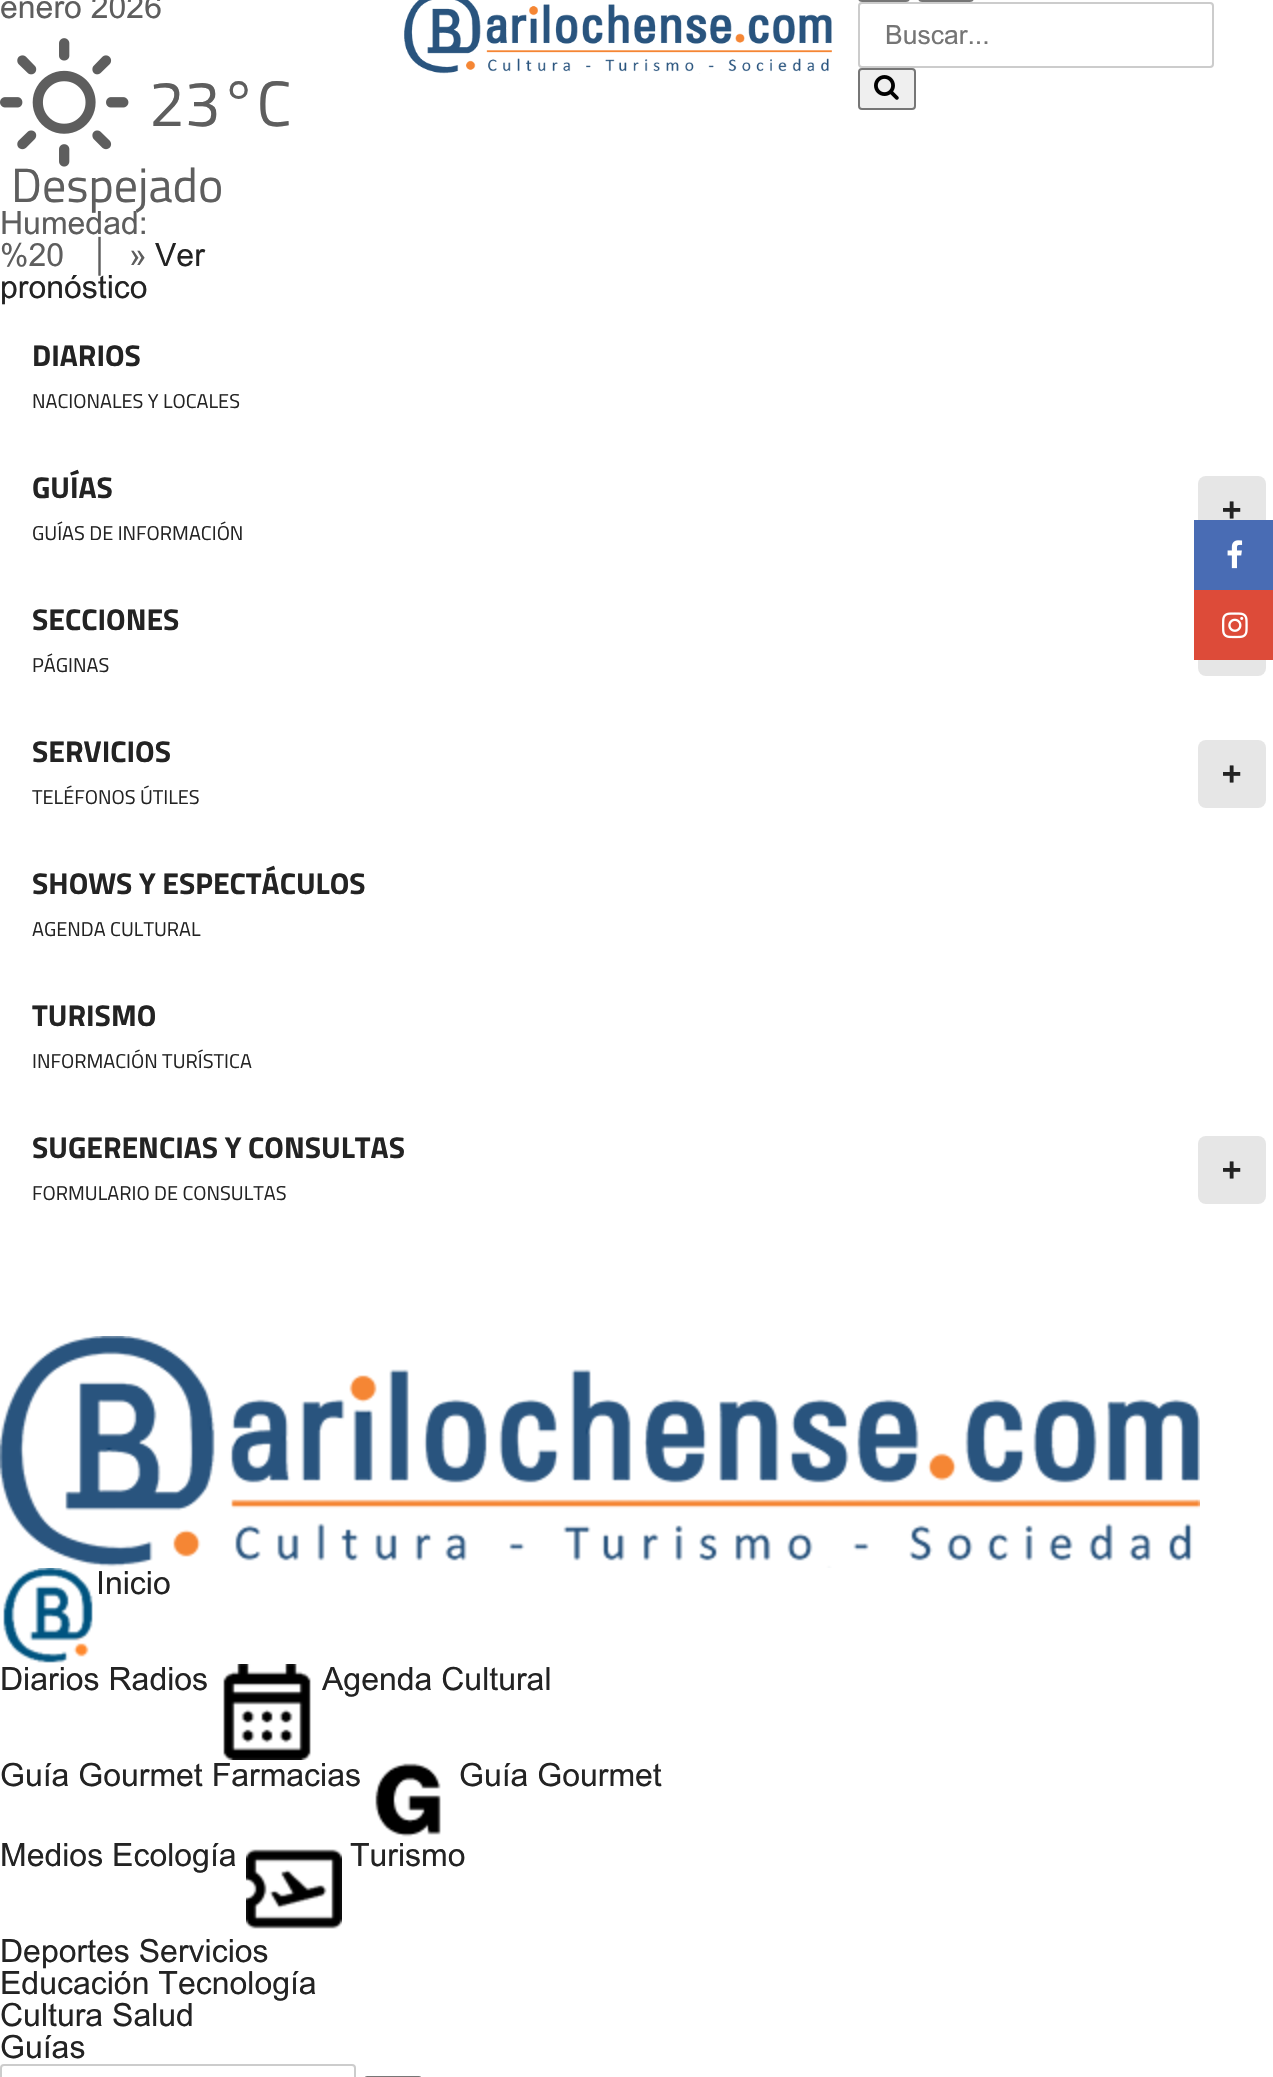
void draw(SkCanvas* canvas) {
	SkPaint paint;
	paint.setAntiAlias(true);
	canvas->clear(0xffffffff);
	SkFont f1(fontMgr->matchFamilyStyle("Arial", SkFontStyle::Normal()), 32);
	f1.setSubpixel(true);
	paint.setColor(0xff5e5e5e);
	canvas->drawString("enero 2026", 0, 18, f1, paint);
	canvas->drawImageRect(SkImages::DeferredFromEncodedData(SkData::MakeFromFileName("img1.png")), SkRect::MakeXYWH(0, 38, 129, 129), SkSamplingOptions());
	SkFont f2(fontMgr->matchFamilyStyle("Titillium Web", SkFontStyle::Normal()), 64);
	f2.setSubpixel(true);
	canvas->drawString("23°C", 149, 126, f2, paint);
	SkFont f3(fontMgr->matchFamilyStyle("Titillium Web", SkFontStyle::Normal()), 48);
	f3.setSubpixel(true);
	canvas->drawString("Despejado", 11, 202, f3, paint);
	canvas->drawString("Humedad:", 0, 234, f1, paint);
	canvas->drawString("%20", 0, 266, f1, paint);
	SkFont f4(fontMgr->matchFamilyStyle("Liberation Sans", SkFontStyle::Normal()), 32);
	f4.setSubpixel(true);
	canvas->drawString("│", 91, 266, f4, paint);
	canvas->drawString("»", 129, 266, f1, paint);
	paint.setColor(0xff232323);
	canvas->drawString("Ver", 155, 266, f1, paint);
	canvas->drawString("pronóstico", 0, 298, f1, paint);
	canvas->drawImageRect(SkImages::DeferredFromEncodedData(SkData::MakeFromFileName("img2.png")), SkRect::MakeXYWH(404, 0, 428, 74), SkSamplingOptions());
	paint.setStroke(true);
	paint.setStrokeWidth(2);
	paint.setColor(0xff767676);
	canvas->drawRoundRect(SkRect::MakeXYWH(859, -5, 50, 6), 3, 3, paint);
	canvas->drawRoundRect(SkRect::MakeXYWH(919, -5, 54, 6), 3, 3, paint);
	paint.setColor(0xffcccccc);
	canvas->drawRoundRect(SkRect::MakeXYWH(859, 3, 354, 64), 3, 3, paint);
	SkFont f5(fontMgr->matchFamilyStyle("Arial", SkFontStyle::Normal()), 26.5);
	f5.setSubpixel(true);
	paint.setStroke(false);
	paint.setColor(0xff757575);
	canvas->drawString("Buscar...", 885, 44, f5, paint);
	paint.setColor(0xffefefef);
	canvas->drawRoundRect(SkRect::MakeXYWH(859, 69, 56, 40), 3, 3, paint);
	paint.setStroke(true);
	paint.setColor(0xff767676);
	canvas->drawRoundRect(SkRect::MakeXYWH(859, 69, 56, 40), 3, 3, paint);
	canvas->drawImageRect(SkImages::DeferredFromEncodedData(SkData::MakeFromFileName("img3.png")), SkRect::MakeXYWH(874, 75, 25, 25), SkSamplingOptions());
	SkFont f6(fontMgr->matchFamilyStyle("Titillium Web", SkFontStyle::Bold()), 30);
	f6.setSubpixel(true);
	paint.setStroke(false);
	paint.setColor(0xff232323);
	canvas->drawString("DIARIOS", 32, 366, f6, paint);
	SkFont f7(fontMgr->matchFamilyStyle("Titillium Web", SkFontStyle::Normal()), 20);
	f7.setSubpixel(true);
	canvas->drawString("NACIONALES Y LOCALES", 32, 408, f7, paint);
	canvas->drawString("GUÍAS", 32, 498, f6, paint);
	paint.setColor(0xffe6e6e6);
	canvas->drawRoundRect(SkRect::MakeXYWH(1198, 476, 68, 68), 8, 8, paint);
	SkFont f8(fontMgr->matchFamilyStyle("DejaVu Sans Mono", SkFontStyle::Bold()), 32);
	f8.setSubpixel(true);
	paint.setColor(0xff232323);
	canvas->drawString("+", 1222, 520, f8, paint);
	canvas->drawString("GUÍAS DE INFORMACIÓN", 32, 540, f7, paint);
	canvas->drawString("SECCIONES", 32, 630, f6, paint);
	paint.setColor(0xffe6e6e6);
	canvas->drawRoundRect(SkRect::MakeXYWH(1198, 608, 68, 68), 8, 8, paint);
	paint.setColor(0xff232323);
	canvas->drawString("PÁGINAS", 32, 672, f7, paint);
	canvas->drawString("SERVICIOS", 32, 762, f6, paint);
	paint.setColor(0xffe6e6e6);
	canvas->drawRoundRect(SkRect::MakeXYWH(1198, 740, 68, 68), 8, 8, paint);
	paint.setColor(0xff232323);
	canvas->drawString("+", 1222, 784, f8, paint);
	canvas->drawString("TELÉFONOS ÚTILES", 32, 804, f7, paint);
	canvas->drawString("SHOWS Y ESPECTÁCULOS", 32, 894, f6, paint);
	canvas->drawString("AGENDA CULTURAL", 32, 936, f7, paint);
	canvas->drawString("TURISMO", 32, 1026, f6, paint);
	canvas->drawString("INFORMACIÓN TURÍSTICA", 32, 1068, f7, paint);
	canvas->drawString("SUGERENCIAS Y CONSULTAS", 32, 1158, f6, paint);
	paint.setColor(0xffe6e6e6);
	canvas->drawRoundRect(SkRect::MakeXYWH(1198, 1136, 68, 68), 8, 8, paint);
	paint.setColor(0xff232323);
	canvas->drawString("+", 1222, 1180, f8, paint);
	canvas->drawString("FORMULARIO DE CONSULTAS", 32, 1200, f7, paint);
	canvas->drawImageRect(SkImages::DeferredFromEncodedData(SkData::MakeFromFileName("img4.png")), SkRect::MakeXYWH(0, 1336, 1200, 232), SkSamplingOptions());
	canvas->drawImageRect(SkImages::DeferredFromEncodedData(SkData::MakeFromFileName("img5.png")), SkRect::MakeXYWH(3, 1568, 90, 95), SkSamplingOptions());
	canvas->drawString("Inicio", 96, 1594, f1, paint);
	canvas->drawString("Diarios Radios", 0, 1690, f1, paint);
	canvas->drawImageRect(SkImages::DeferredFromEncodedData(SkData::MakeFromFileName("img6.png")), SkRect::MakeXYWH(223, 1664, 88, 96), SkSamplingOptions());
	canvas->drawString("Agenda Cultural", 322, 1690, f1, paint);
	canvas->drawString("Guía Gourmet Farmacias", 0, 1786, f1, paint);
	canvas->drawImageRect(SkImages::DeferredFromEncodedData(SkData::MakeFromFileName("img7.png")), SkRect::MakeXYWH(375, 1763, 66, 74), SkSamplingOptions());
	canvas->drawString("Guía Gourmet", 459, 1786, f1, paint);
	canvas->drawString("Medios Ecología", 0, 1866, f1, paint);
	canvas->drawImageRect(SkImages::DeferredFromEncodedData(SkData::MakeFromFileName("img8.png")), SkRect::MakeXYWH(246, 1849, 96, 80), SkSamplingOptions());
	canvas->drawString("Turismo", 350, 1866, f1, paint);
	canvas->drawString("Deportes Servicios", 0, 1962, f1, paint);
	canvas->drawString("Educación Tecnología", 0, 1994, f1, paint);
	canvas->drawString("Cultura Salud", 0, 2026, f1, paint);
	canvas->drawString("Guías", 0, 2058, f1, paint);
	paint.setStroke(true);
	paint.setColor(0xffcccccc);
	canvas->drawRoundRect(SkRect::MakeXYWH(1, 2065, 354, 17), 3, 3, paint);
	paint.setColor(0xff767676);
	canvas->drawRoundRect(SkRect::MakeXYWH(365, 2077, 56, 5), 3, 3, paint);
	paint.setStroke(false);
	paint.setColor(0xff496cb4);
	canvas->drawRect(SkRect::MakeXYWH(1194, 520, 79, 70), paint);
	canvas->drawImageRect(SkImages::DeferredFromEncodedData(SkData::MakeFromFileName("img9.png")), SkRect::MakeXYWH(1227, 540, 16, 29), SkSamplingOptions());
	paint.setColor(0xffdd4b39);
	canvas->drawRect(SkRect::MakeXYWH(1194, 590, 79, 70), paint);
	canvas->drawImageRect(SkImages::DeferredFromEncodedData(SkData::MakeFromFileName("img10.png")), SkRect::MakeXYWH(1222, 612, 26, 27), SkSamplingOptions());
}
